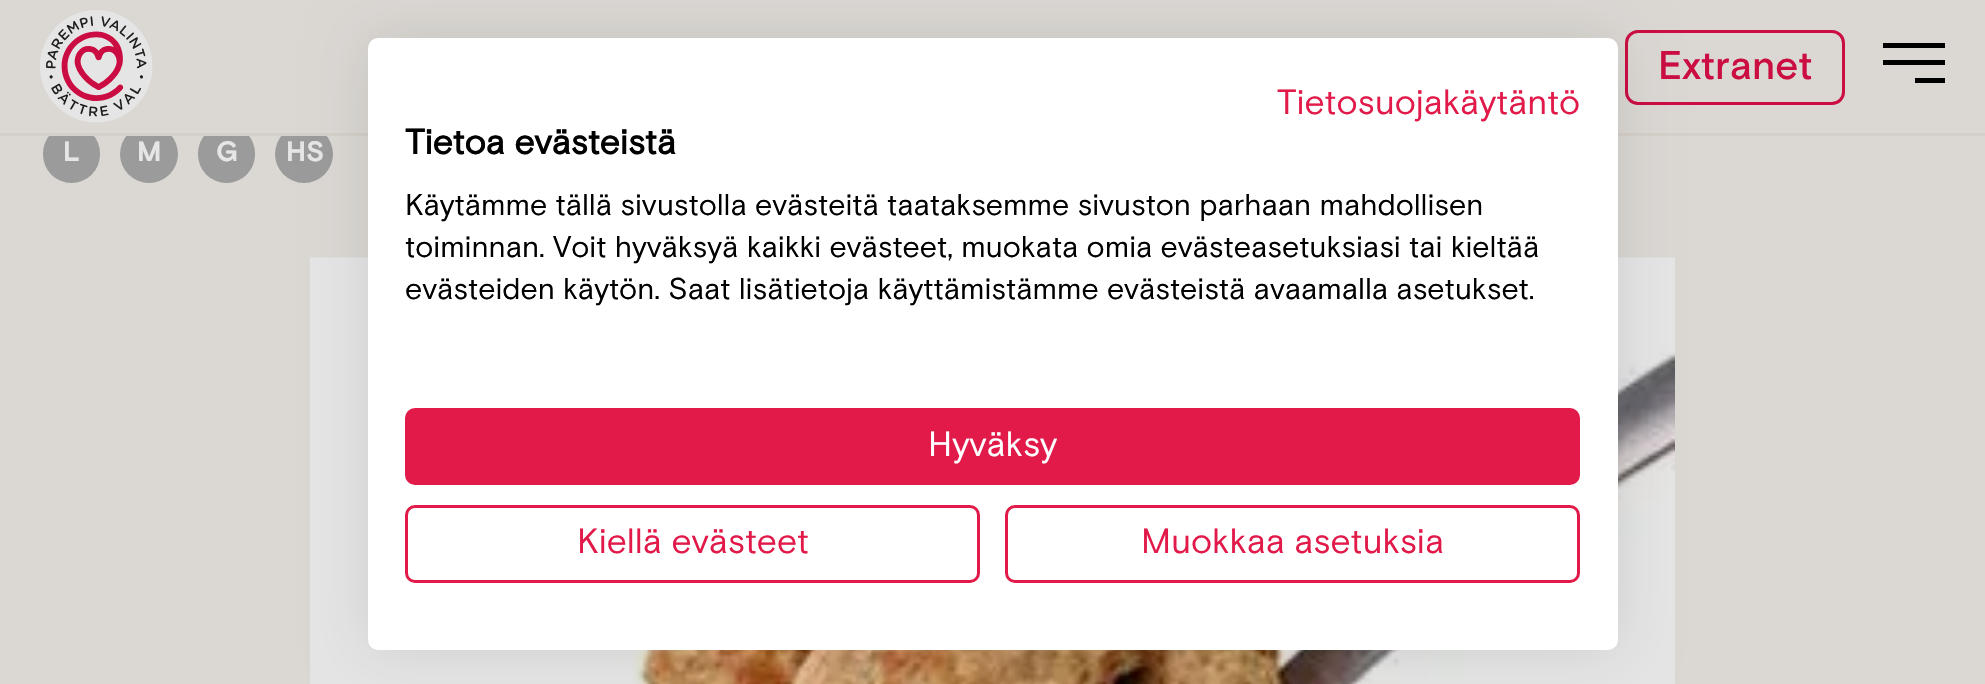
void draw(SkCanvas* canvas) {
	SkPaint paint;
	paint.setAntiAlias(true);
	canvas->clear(0xffdbd8d4);
	paint.setColor(0xff9b9b9b);
	canvas->drawRoundRect(SkRect::MakeXYWH(43, 125, 57, 58), 28.5, 28.5, paint);
	canvas->drawCircle(149, 154, 29, paint);
	canvas->drawRoundRect(SkRect::MakeXYWH(198, 125, 57, 58), 28.5, 28.5, paint);
	canvas->drawCircle(304, 154, 29, paint);
	paint.setColor(0xffdbd8d4);
	canvas->drawRect(SkRect::MakeXYWH(52, 125, 272, 8), paint);
	paint.setColor(0xffd4cfc9);
	canvas->drawRect(SkRect::MakeXYWH(0, 133, 1985, 3), paint);
	canvas->drawImageRect(SkImages::DeferredFromEncodedData(SkData::MakeFromFileName("img1.png")), SkRect::MakeXYWH(40, 10, 113, 113), SkSamplingOptions());
	paint.setStroke(true);
	paint.setStrokeWidth(3);
	paint.setColor(0xffcb0d42);
	canvas->drawRoundRect(SkRect::MakeXYWH(1626.5, 31.5, 217, 72), 11.5, 11.5, paint);
	SkFont f1(fontMgr->matchFamilyStyle("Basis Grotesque", SkFontStyle(500, SkFontStyle::kNormal_Width, SkFontStyle::kUpright_Slant)), 40);
	f1.setSubpixel(true);
	paint.setStroke(false);
	canvas->drawString("Extranet", 1658, 79, f1, paint);
	paint.setColor(0xff000000);
	canvas->drawRect(SkRect::MakeXYWH(1883, 43, 62, 5), paint);
	canvas->drawRect(SkRect::MakeXYWH(1883, 60, 62, 5), paint);
	canvas->drawRect(SkRect::MakeXYWH(1915, 78, 30, 5), paint);
	SkFont f2(fontMgr->matchFamilyStyle("Basis Grotesque", SkFontStyle::Bold()), 28);
	f2.setSubpixel(true);
	paint.setColor(0xffe6e6e6);
	canvas->drawString("L", 63, 161, f2, paint);
	canvas->drawString("M", 137, 161, f2, paint);
	canvas->drawString("G", 216, 161, f2, paint);
	canvas->drawString("HS", 286, 161, f2, paint);
	canvas->drawImageRect(SkImages::DeferredFromEncodedData(SkData::MakeFromFileName("img2.png")), SkRect::MakeXYWH(310, 257, 1365, 427), SkSamplingOptions());
	paint.setColor(0x1a000000);
	paint.setMaskFilter(SkMaskFilter::MakeBlur(kNormal_SkBlurStyle, 30));
	canvas->drawRoundRect(SkRect::MakeXYWH(368, 38, 1250, 612), 10, 10, paint);
	paint.setMaskFilter(nullptr);
	paint.setColor(0xffffffff);
	canvas->drawRoundRect(SkRect::MakeXYWH(368, 38, 1250, 612), 10, 10, paint);
	SkFont f3(fontMgr->matchFamilyStyle("Basis Grotesque", SkFontStyle::Normal()), 35);
	f3.setSubpixel(true);
	paint.setColor(0xffe11a49);
	canvas->drawString("Tietosuojakäytäntö", 1277, 114, f3, paint);
	SkFont f4(fontMgr->matchFamilyStyle("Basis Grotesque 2", SkFontStyle::Bold()), 35);
	f4.setSubpixel(true);
	paint.setColor(0xff000000);
	canvas->drawString("Tietoa evästeistä", 405, 154, f4, paint);
	SkFont f5(fontMgr->matchFamilyStyle("Basis Grotesque", SkFontStyle::Normal()), 30);
	f5.setSubpixel(true);
	canvas->drawString("Käytämme tällä sivustolla evästeitä taataksemme sivuston parhaan mahdollisen", 405, 215, f5, paint);
	canvas->drawString("toiminnan. Voit hyväksyä kaikki evästeet, muokata omia evästeasetuksiasi tai kieltää", 405, 257, f5, paint);
	canvas->drawString("evästeiden käytön. Saat lisätietoja käyttämistämme evästeistä avaamalla asetukset.", 405, 299, f5, paint);
	paint.setColor(0xffe11a49);
	canvas->drawRoundRect(SkRect::MakeXYWH(406.5, 409.5, 1172, 74), 8.5, 8.5, paint);
	paint.setStroke(true);
	canvas->drawRoundRect(SkRect::MakeXYWH(406.5, 409.5, 1172, 74), 8.5, 8.5, paint);
	paint.setStroke(false);
	paint.setColor(0xffffffff);
	canvas->drawString("Hyväksy", 928, 456, f3, paint);
	paint.setStroke(true);
	paint.setColor(0xffe11a49);
	canvas->drawRoundRect(SkRect::MakeXYWH(406.5, 506.5, 572, 75), 8.5, 8.5, paint);
	paint.setStroke(false);
	canvas->drawString("Kiellä evästeet", 577, 553, f3, paint);
	paint.setStroke(true);
	canvas->drawRoundRect(SkRect::MakeXYWH(1006.5, 506.5, 572, 75), 8.5, 8.5, paint);
	paint.setStroke(false);
	canvas->drawString("Muokkaa asetuksia", 1141, 553, f3, paint);
}
